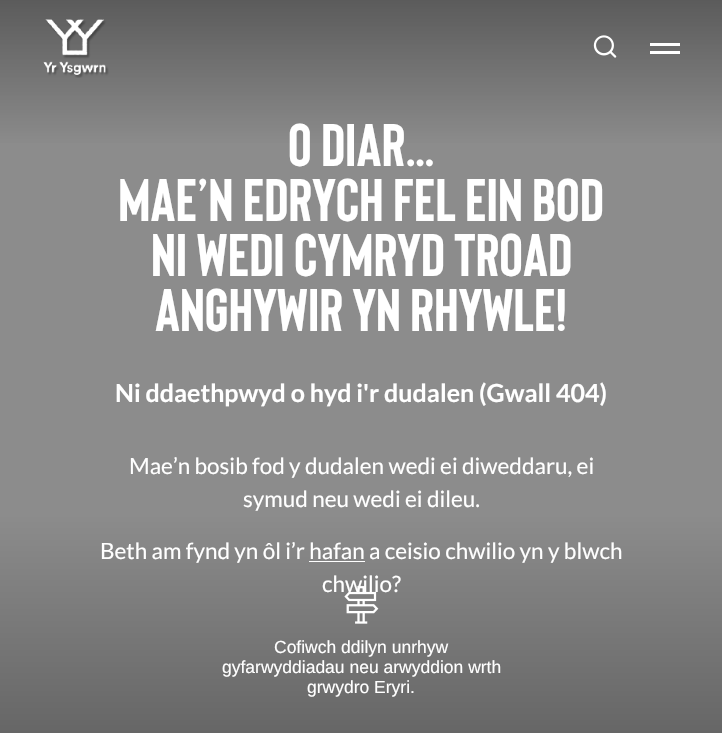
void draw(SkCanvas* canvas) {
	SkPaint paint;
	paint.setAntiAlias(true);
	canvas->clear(0xffffffff);
	{
		const SkColor colors[] = {0xffa6a6a6, 0xffffffff};
		const float stops[] = {0, 0.2};
		const SkPoint ends[] = {{361, 0}, {361, 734}};
		paint.setShader(SkGradientShader::MakeLinear(ends, colors, stops, 2, SkTileMode::kClamp));
		paint.setAlpha(255);
	}
	canvas->drawRect(SkRect::MakeXYWH(0, 0, 722, 143), paint);
	{
		const SkColor colors[] = {0x99000000, 0x73000000};
		const float stops[] = {0, 0.3};
		const SkPoint ends[] = {{361, 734}, {361, 0}};
		paint.setShader(SkGradientShader::MakeLinear(ends, colors, stops, 2, SkTileMode::kClamp));
		paint.setAlpha(255);
	}
	canvas->drawRect(SkRect::MakeXYWH(0, 0, 722, 733), paint);
	canvas->drawImageRect(SkImages::DeferredFromEncodedData(SkData::MakeFromFileName("img1.png")), SkRect::MakeXYWH(43, 19, 66, 59), SkSamplingOptions());
	canvas->drawImageRect(SkImages::DeferredFromEncodedData(SkData::MakeFromFileName("img2.png")), SkRect::MakeXYWH(593, 35, 24, 23), SkSamplingOptions());
	paint.setShader(nullptr);
	paint.setColor(0xffffffff);
	canvas->drawRect(SkRect::MakeXYWH(650, 43, 30, 3), paint);
	canvas->drawRect(SkRect::MakeXYWH(650, 51, 30, 3), paint);
	SkFont f1(fontMgr->matchFamilyStyle("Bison", SkFontStyle::Bold()), 60);
	f1.setSubpixel(true);
	canvas->drawString("O diar…", 288, 166, f1, paint);
	canvas->drawString("Mae’n edrych fel ein bod", 118, 221, f1, paint);
	canvas->drawString("ni wedi cymryd troad", 151, 276, f1, paint);
	canvas->drawString("anghywir yn rhywle!", 155, 331, f1, paint);
	SkFont f2(fontMgr->matchFamilyStyle("Lato", SkFontStyle::Bold()), 25);
	f2.setSubpixel(true);
	canvas->drawString("Ni ddaethpwyd o hyd i'r dudalen (Gwall 404)", 115, 402, f2, paint);
	SkFont f3(fontMgr->matchFamilyStyle("Lato", SkFontStyle::Normal()), 22.5);
	f3.setSubpixel(true);
	canvas->drawString("Mae’n bosib fod y dudalen wedi ei diweddaru, ei", 129, 474, f3, paint);
	canvas->drawString("symud neu wedi ei dileu.", 243, 507, f3, paint);
	canvas->drawString("Beth am fynd yn ôl i’r hafan a ceisio chwilio yn y blwch", 100, 559, f3, paint);
	canvas->drawRect(SkRect::MakeXYWH(309, 561, 56, 1), paint);
	canvas->drawString("chwilio?", 322, 592, f3, paint);
	canvas->drawImageRect(SkImages::DeferredFromEncodedData(SkData::MakeFromFileName("img3.png")), SkRect::MakeXYWH(344, 586, 35, 38), SkSamplingOptions());
	SkFont f4(fontMgr->matchFamilyStyle("Liberation Sans", SkFontStyle::Normal()), 17.5);
	f4.setSubpixel(true);
	canvas->drawString("Cofiwch ddilyn unrhyw", 274, 653, f4, paint);
	canvas->drawString("gyfarwyddiadau neu arwyddion wrth", 222, 673, f4, paint);
	canvas->drawString("grwydro Eryri.", 307, 693, f4, paint);
}
